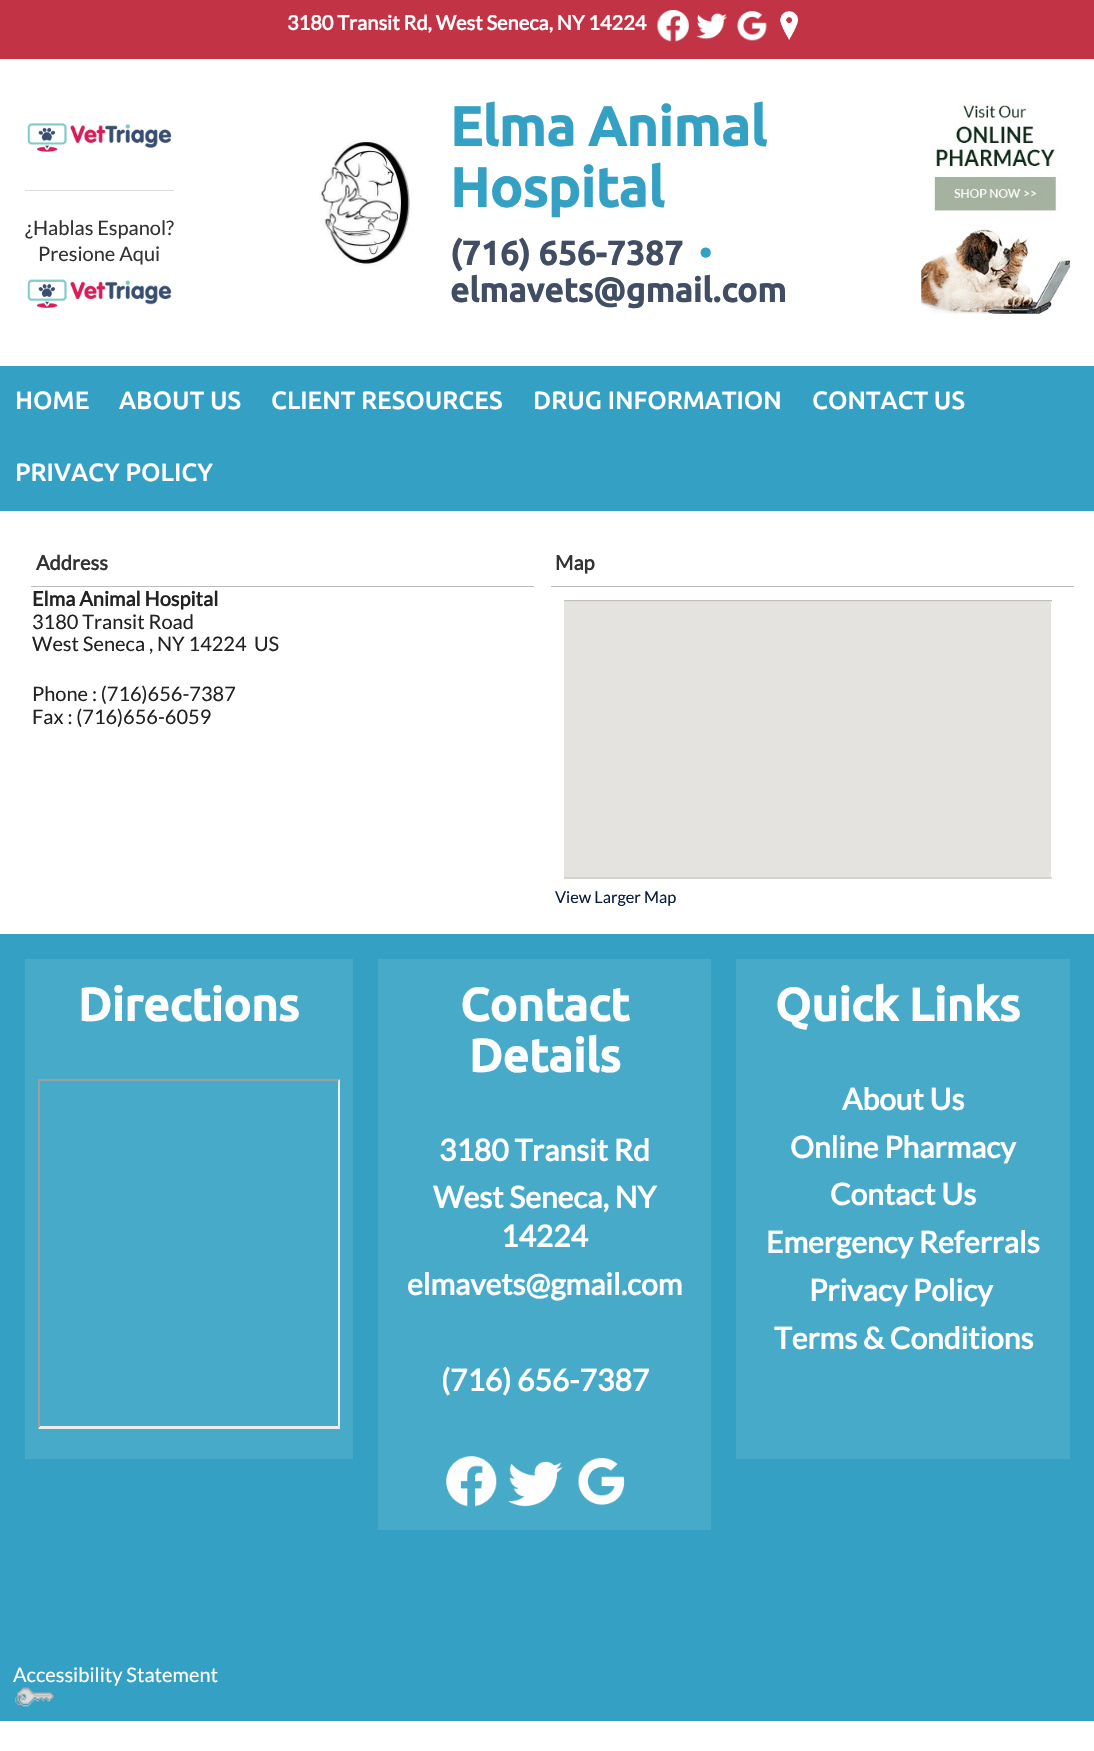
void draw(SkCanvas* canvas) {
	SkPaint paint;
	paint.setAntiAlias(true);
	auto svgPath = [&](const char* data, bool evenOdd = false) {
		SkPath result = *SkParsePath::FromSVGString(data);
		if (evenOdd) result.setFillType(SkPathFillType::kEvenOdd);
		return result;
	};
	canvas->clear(0xffffffff);
	paint.setColor(0xffc23346);
	canvas->drawRect(SkRect::MakeXYWH(0, 0, 1094, 59), paint);
	SkFont f1(fontMgr->matchFamilyStyle("Lato", SkFontStyle::Bold()), 20);
	f1.setSubpixel(true);
	paint.setColor(0xffffffff);
	canvas->drawString("3180 Transit Rd, West Seneca, NY 14224", 287, 30, f1, paint);
	canvas->drawImageRect(SkImages::DeferredFromEncodedData(SkData::MakeFromFileName("img1.png")), SkRect::MakeXYWH(657, 10, 32, 32), SkSamplingOptions());
	canvas->drawImageRect(SkImages::DeferredFromEncodedData(SkData::MakeFromFileName("img2.png")), SkRect::MakeXYWH(696, 13, 31, 27), SkSamplingOptions());
	canvas->drawImageRect(SkImages::DeferredFromEncodedData(SkData::MakeFromFileName("img3.png")), SkRect::MakeXYWH(737, 11, 30, 30), SkSamplingOptions());
	canvas->drawImageRect(SkImages::DeferredFromEncodedData(SkData::MakeFromFileName("img4.png")), SkRect::MakeXYWH(780, 11, 18, 29), SkSamplingOptions());
	canvas->drawImageRect(SkImages::DeferredFromEncodedData(SkData::MakeFromFileName("img5.png")), SkRect::MakeXYWH(27, 123, 145, 29), SkSamplingOptions());
	paint.setColor(0xffdddddd);
	canvas->drawRect(SkRect::MakeXYWH(25, 190, 149, 1), paint);
	SkFont f2(fontMgr->matchFamilyStyle("Lato", SkFontStyle::Normal()), 20);
	f2.setSubpixel(true);
	paint.setColor(0xff333333);
	canvas->drawString("¿Hablas Espanol?", 25, 235, f2, paint);
	canvas->drawString("Presione Aqui", 38, 261, f2, paint);
	canvas->drawImageRect(SkImages::DeferredFromEncodedData(SkData::MakeFromFileName("img6.png")), SkRect::MakeXYWH(27, 279, 145, 29), SkSamplingOptions());
	canvas->drawImageRect(SkImages::DeferredFromEncodedData(SkData::MakeFromFileName("img7.png")), SkRect::MakeXYWH(319, 140, 91, 126), SkSamplingOptions());
	SkFont f3(fontMgr->matchFamilyStyle("Ubuntu", SkFontStyle::Bold()), 55);
	f3.setSubpixel(true);
	paint.setColor(0xff34a0c3);
	canvas->drawString("Elma Animal", 450, 146, f3, paint);
	canvas->drawString("Hospital", 450, 207, f3, paint);
	SkFont f4(fontMgr->matchFamilyStyle("Ubuntu", SkFontStyle::Bold()), 33.75);
	f4.setSubpixel(true);
	paint.setColor(0xff404d62);
	canvas->drawString("(716) 656-7387", 450, 265, f4, paint);
	paint.setColor(0xff34a0c3);
	canvas->drawString("•", 699, 265, f4, paint);
	paint.setColor(0xff404d62);
	canvas->drawString("elmavets@gmail.com", 450, 302, f4, paint);
	canvas->drawImageRect(SkImages::DeferredFromEncodedData(SkData::MakeFromFileName("img8.png")), SkRect::MakeXYWH(921, 104, 149, 210), SkSamplingOptions());
	paint.setColor(0xff34a0c3);
	canvas->drawRect(SkRect::MakeXYWH(0, 366, 1094, 145), paint);
	SkFont f5(fontMgr->matchFamilyStyle("Ubuntu", SkFontStyle(500, SkFontStyle::kNormal_Width, SkFontStyle::kUpright_Slant)), 25);
	f5.setSubpixel(true);
	paint.setColor(0xffffffff);
	canvas->drawString("HOME", 15, 409, f5, paint);
	canvas->drawString("ABOUT US", 119, 409, f5, paint);
	canvas->drawString("CLIENT RESOURCES", 271, 409, f5, paint);
	canvas->drawString("DRUG INFORMATION", 533, 409, f5, paint);
	canvas->drawString("CONTACT US", 812, 409, f5, paint);
	canvas->drawString("PRIVACY POLICY", 15, 481, f5, paint);
	paint.setColor(0xffbabbbb);
	canvas->drawRect(SkRect::MakeXYWH(31, 586, 503, 1), paint);
	paint.setColor(0xff333333);
	canvas->drawString("Address", 36, 570, f1, paint);
	paint.setColor(0xff222222);
	canvas->drawString("Elma Animal Hospital", 32, 606, f1, paint);
	canvas->drawString("3180 Transit Road", 32, 629, f2, paint);
	canvas->drawString("West Seneca , NY 14224", 32, 651, f2, paint);
	canvas->drawString("US", 254, 651, f2, paint);
	canvas->drawString("Phone : (716)656-7387", 32, 701, f2, paint);
	canvas->drawString("Fax : (716)656-6059", 32, 724, f2, paint);
	paint.setColor(0xffbabbbb);
	canvas->drawRect(SkRect::MakeXYWH(551, 586, 523, 1), paint);
	paint.setColor(0xff333333);
	canvas->drawString("Map", 555, 570, f1, paint);
	canvas->drawImageRect(SkImages::DeferredFromEncodedData(SkData::MakeFromFileName("img9.png")), SkRect::MakeXYWH(564, 600, 488, 279), SkSamplingOptions());
	SkFont f6(fontMgr->matchFamilyStyle("Lato", SkFontStyle::Normal()), 16.25);
	f6.setSubpixel(true);
	paint.setColor(0xff091d42);
	canvas->drawString("View Larger Map", 555, 903, f6, paint);
	paint.setColor(0xff34a0c3);
	canvas->drawRect(SkRect::MakeXYWH(0, 934, 1094, 787), paint);
	paint.setColor(0xff48aac9);
	canvas->drawRect(SkRect::MakeXYWH(25, 959, 328, 500), paint);
	SkFont f7(fontMgr->matchFamilyStyle("Ubuntu", SkFontStyle::Bold()), 46.25);
	f7.setSubpixel(true);
	paint.setColor(0xffffffff);
	canvas->drawString("Directions", 78, 1021, f7, paint);
	paint.setColor(0xff9f9f9f);
	canvas->drawPath(svgPath("M38 1079H340L338 1081H40Z"), paint);
	paint.setColor(0xffeeeeee);
	canvas->drawPath(svgPath("M340 1079V1429L338 1426V1081Z"), paint);
	canvas->drawPath(svgPath("M340 1429H38L40 1426H338Z"), paint);
	paint.setColor(0xff9f9f9f);
	canvas->drawPath(svgPath("M38 1429V1079L40 1081V1426Z"), paint);
	paint.setColor(0xff48aac9);
	canvas->drawRect(SkRect::MakeXYWH(378, 959, 333, 571), paint);
	paint.setColor(0xffffffff);
	canvas->drawString("Contact", 460, 1021, f7, paint);
	canvas->drawString("Details", 469, 1072, f7, paint);
	SkFont f8(fontMgr->matchFamilyStyle("Lato", SkFontStyle::Bold()), 30);
	f8.setSubpixel(true);
	canvas->drawString("3180 Transit Rd", 439, 1161, f8, paint);
	canvas->drawString("West Seneca, NY", 433, 1208, f8, paint);
	canvas->drawString("14224", 501, 1247, f8, paint);
	canvas->drawString("elmavets@gmail.com", 407, 1295, f8, paint);
	canvas->drawString("(716) 656-7387", 441, 1391, f8, paint);
	canvas->drawImageRect(SkImages::DeferredFromEncodedData(SkData::MakeFromFileName("img10.png")), SkRect::MakeXYWH(446, 1456, 51, 51), SkSamplingOptions());
	canvas->drawImageRect(SkImages::DeferredFromEncodedData(SkData::MakeFromFileName("img11.png")), SkRect::MakeXYWH(508, 1461, 55, 46), SkSamplingOptions());
	canvas->drawImageRect(SkImages::DeferredFromEncodedData(SkData::MakeFromFileName("img12.png")), SkRect::MakeXYWH(578, 1457, 47, 48), SkSamplingOptions());
	paint.setColor(0xff48aac9);
	canvas->drawRect(SkRect::MakeXYWH(736, 959, 334, 500), paint);
	paint.setColor(0xffffffff);
	canvas->drawString("Quick Links", 775, 1021, f7, paint);
	canvas->drawString("About Us", 842, 1110, f8, paint);
	canvas->drawString("Online Pharmacy", 790, 1158, f8, paint);
	canvas->drawString("Contact Us", 830, 1205, f8, paint);
	canvas->drawString("Emergency Referrals", 766, 1253, f8, paint);
	canvas->drawString("Privacy Policy", 809, 1301, f8, paint);
	canvas->drawString("Terms & Conditions", 774, 1349, f8, paint);
	canvas->drawString("Accessibility Statement", 13, 1682, f2, paint);
	canvas->drawImageRect(SkImages::DeferredFromEncodedData(SkData::MakeFromFileName("img13.png")), SkRect::MakeXYWH(14, 1687, 40, 20), SkSamplingOptions());
}
